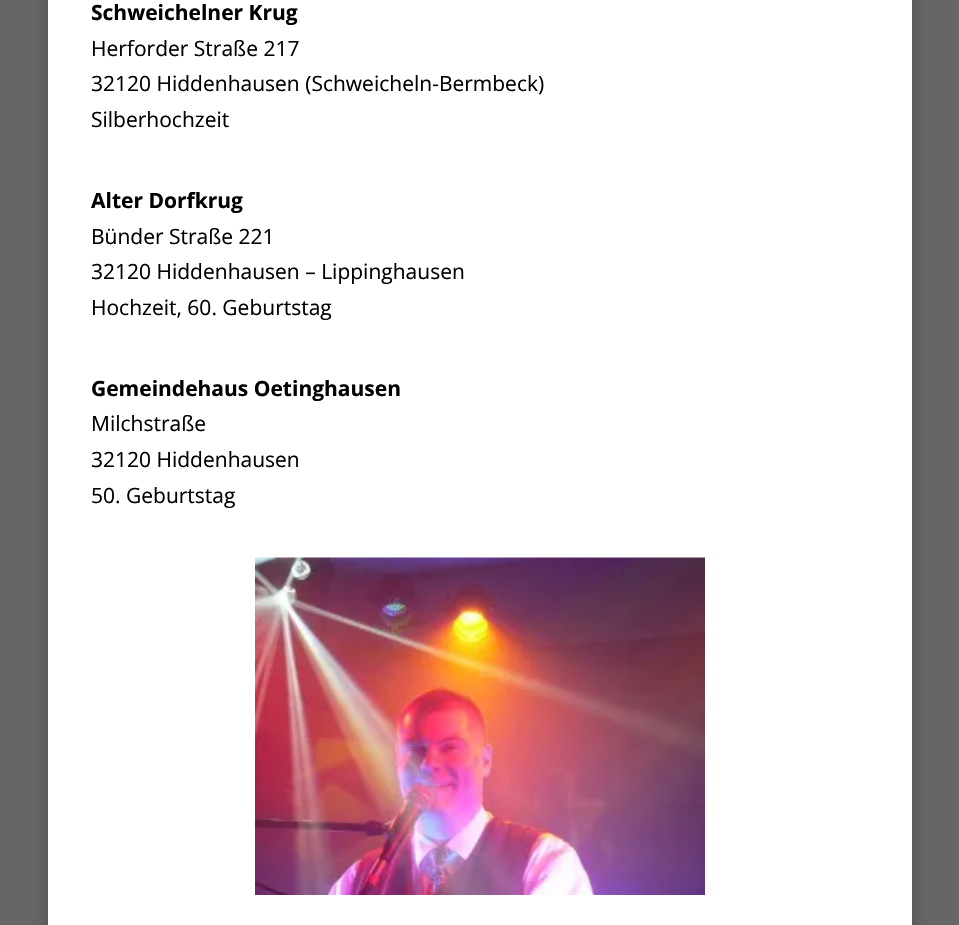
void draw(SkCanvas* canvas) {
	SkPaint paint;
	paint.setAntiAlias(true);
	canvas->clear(0xff666666);
	paint.setColor(0x33000000);
	paint.setMaskFilter(SkMaskFilter::MakeBlur(kNormal_SkBlurStyle, 7.5));
	canvas->drawRect(SkRect::MakeXYWH(48, -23, 864, 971), paint);
	paint.setMaskFilter(nullptr);
	paint.setColor(0xffffffff);
	canvas->drawRect(SkRect::MakeXYWH(48, 0, 864, 925), paint);
	SkFont f1(fontMgr->matchFamilyStyle("Open Sans", SkFontStyle::Bold()), 21);
	f1.setSubpixel(true);
	paint.setColor(0xff000000);
	canvas->drawString("Schweichelner Krug", 91, 20, f1, paint);
	SkFont f2(fontMgr->matchFamilyStyle("Open Sans", SkFontStyle::Normal()), 21);
	f2.setSubpixel(true);
	canvas->drawString("Herforder Straße 217", 91, 56, f2, paint);
	canvas->drawString("32120 Hiddenhausen (Schweicheln-Bermbeck)", 91, 91, f2, paint);
	canvas->drawString("Silberhochzeit", 91, 127, f2, paint);
	canvas->drawString("Alter Dorfkrug", 91, 208, f1, paint);
	canvas->drawString("Bünder Straße 221", 91, 244, f2, paint);
	canvas->drawString("32120 Hiddenhausen – Lippinghausen", 91, 279, f2, paint);
	canvas->drawString("Hochzeit, 60. Geburtstag", 91, 315, f2, paint);
	canvas->drawString("Gemeindehaus Oetinghausen", 91, 396, f1, paint);
	canvas->drawString("Milchstraße", 91, 431, f2, paint);
	canvas->drawString("32120 Hiddenhausen", 91, 467, f2, paint);
	canvas->drawString("50. Geburtstag", 91, 503, f2, paint);
	canvas->drawImageRect(SkImages::DeferredFromEncodedData(SkData::MakeFromFileName("img1.png")), SkRect::MakeXYWH(255, 557, 450, 338), SkSamplingOptions());
}
